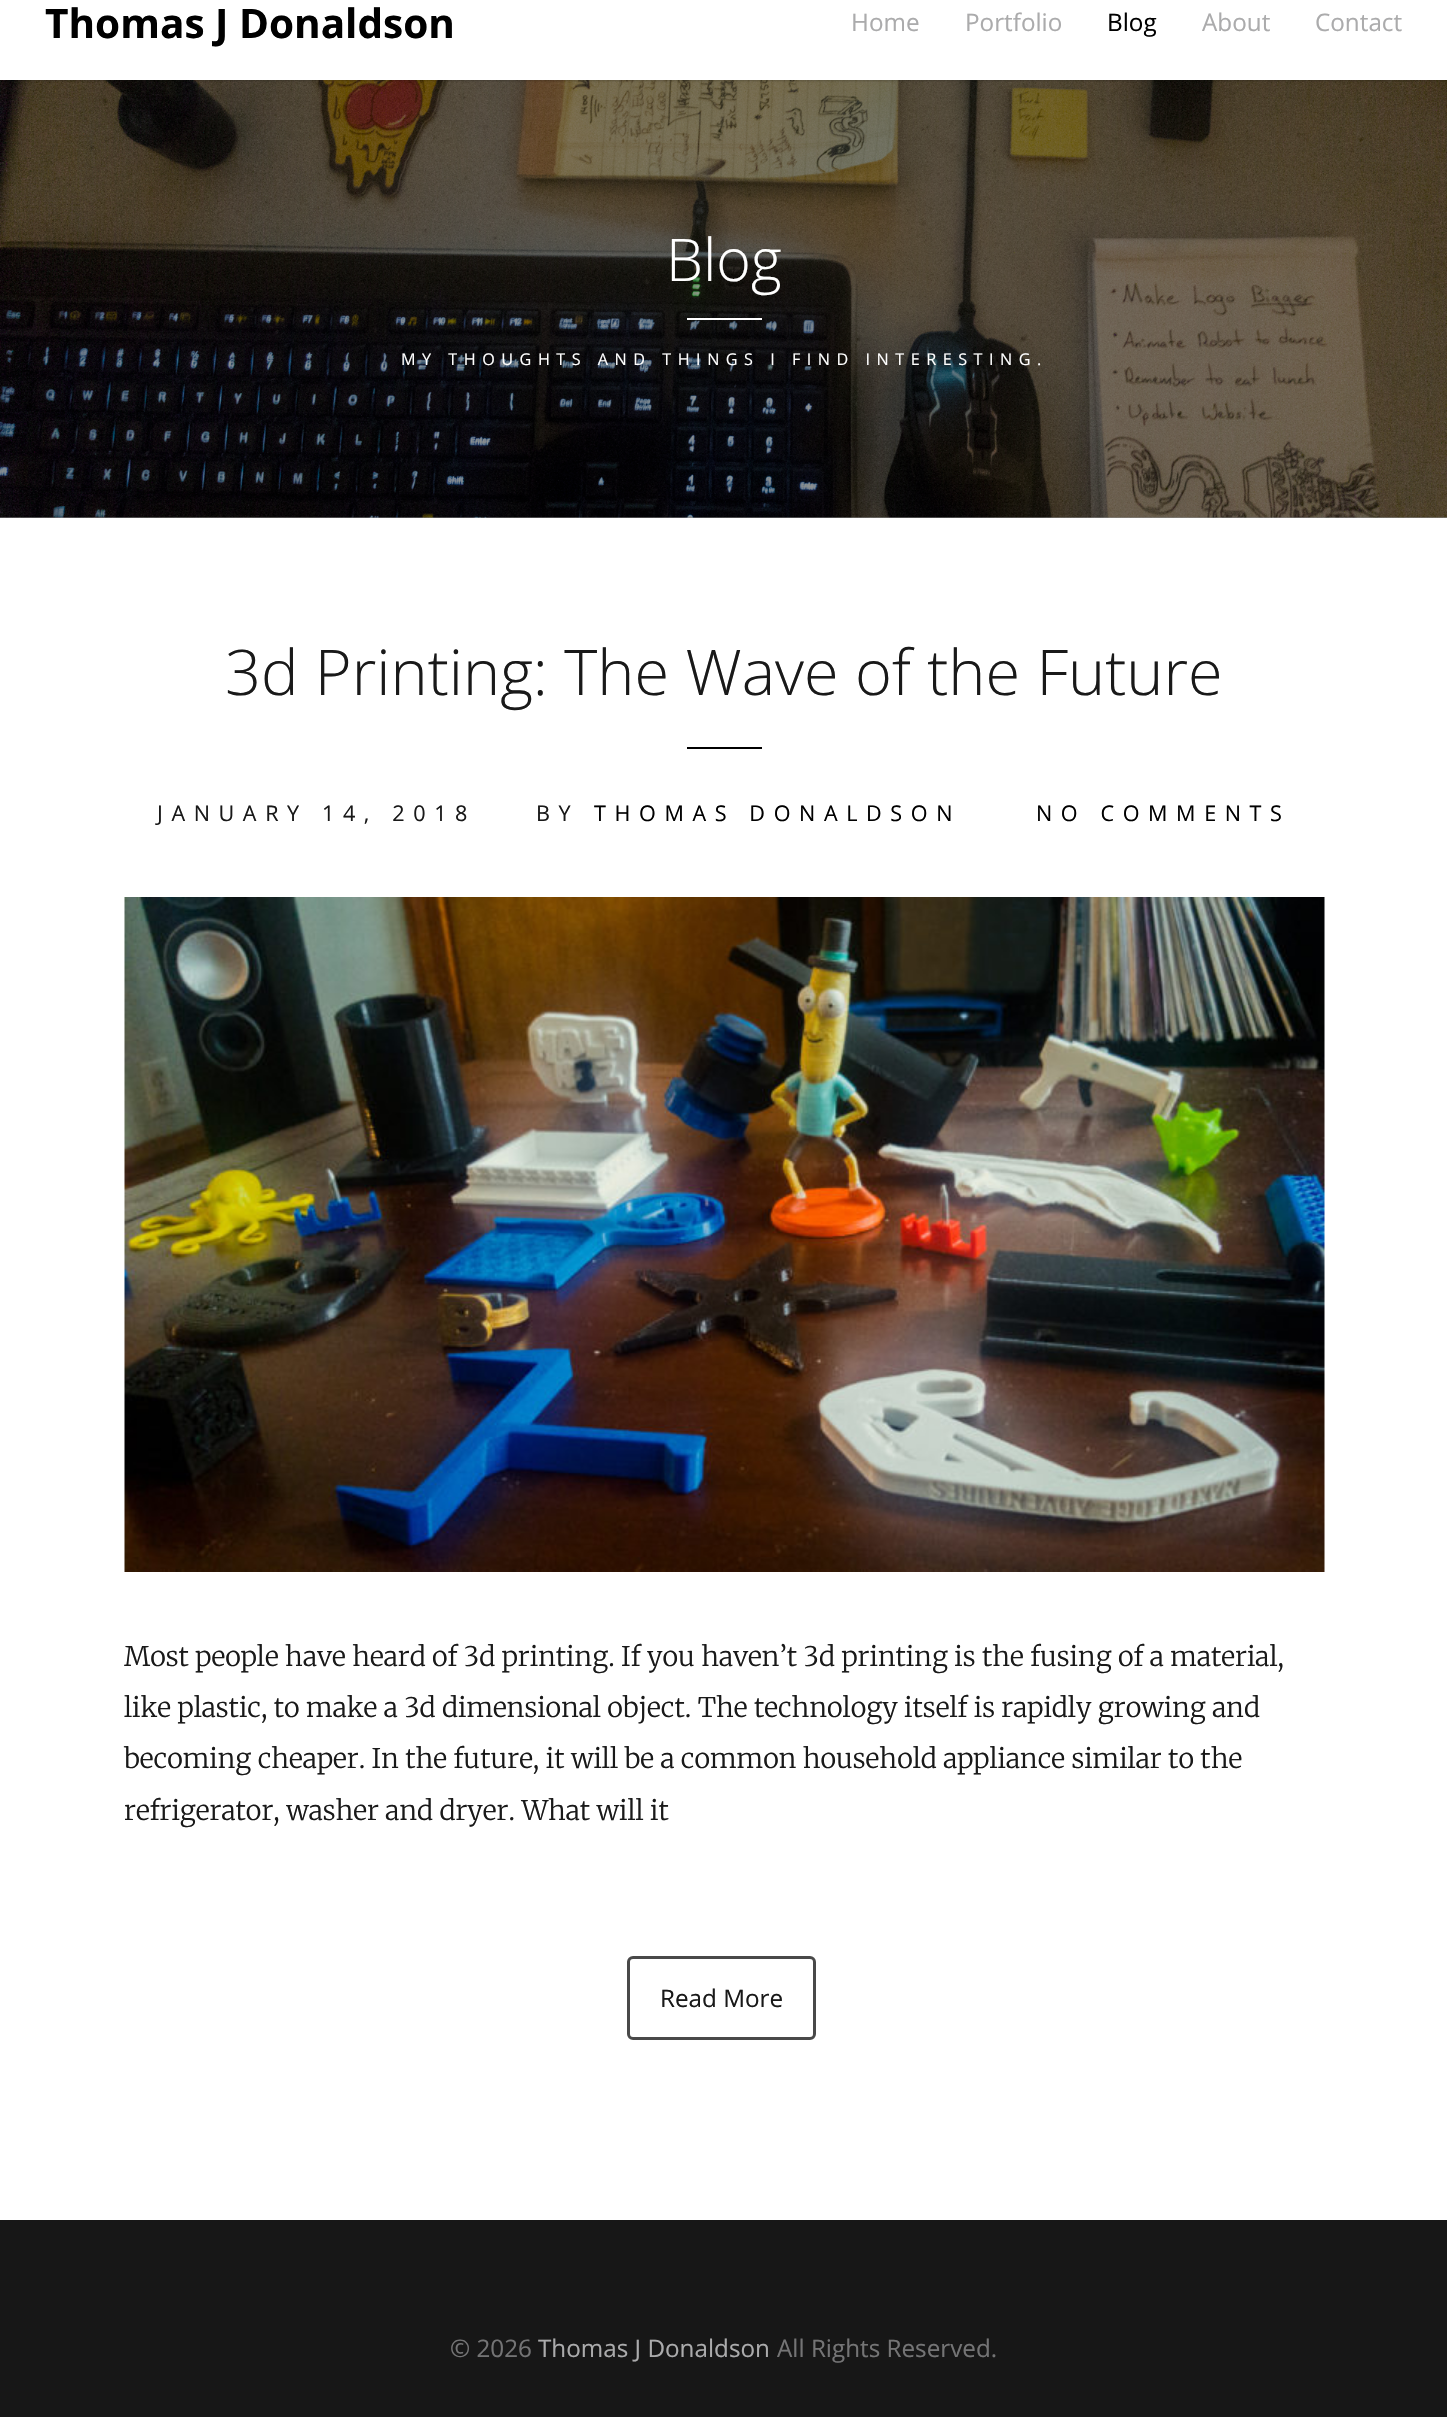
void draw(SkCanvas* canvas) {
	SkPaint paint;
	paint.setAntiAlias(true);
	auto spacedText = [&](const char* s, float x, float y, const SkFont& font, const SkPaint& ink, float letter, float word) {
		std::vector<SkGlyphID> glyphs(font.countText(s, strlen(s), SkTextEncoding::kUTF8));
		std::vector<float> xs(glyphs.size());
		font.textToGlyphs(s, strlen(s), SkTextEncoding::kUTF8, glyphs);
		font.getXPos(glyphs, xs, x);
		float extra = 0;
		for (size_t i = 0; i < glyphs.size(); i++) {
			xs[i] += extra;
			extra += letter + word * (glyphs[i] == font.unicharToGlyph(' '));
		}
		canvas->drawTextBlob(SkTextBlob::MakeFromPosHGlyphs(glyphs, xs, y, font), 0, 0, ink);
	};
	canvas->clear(0xffffffff);
	paint.setColor(0xff8f8f8f);
	canvas->drawRect(SkRect::MakeXYWH(0, 517, 1447, 1), paint);
	canvas->drawImageRect(SkImages::DeferredFromEncodedData(SkData::MakeFromFileName("img1.png")), SkRect::MakeXYWH(0, 80, 1447, 438), SkSamplingOptions());
	paint.setColor(0x33000000);
	paint.setMaskFilter(SkMaskFilter::MakeBlur(kNormal_SkBlurStyle, 1));
	canvas->drawRect(SkRect::MakeXYWH(0, -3, 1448, 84), paint);
	paint.setMaskFilter(nullptr);
	paint.setColor(0xffffffff);
	canvas->drawRect(SkRect::MakeXYWH(0, 0, 1447, 80), paint);
	SkFont f1(fontMgr->matchFamilyStyle("Open Sans", SkFontStyle::Bold()), 40.5);
	f1.setSubpixel(true);
	paint.setColor(0xff000000);
	canvas->drawString("Thomas J Donaldson", 45, 38, f1, paint);
	SkFont f2(fontMgr->matchFamilyStyle("Open Sans", SkFontStyle::Normal()), 24.25);
	f2.setSubpixel(true);
	paint.setColor(0xffababac);
	canvas->drawString("Home", 851, 31, f2, paint);
	canvas->drawString("Portfolio", 965, 31, f2, paint);
	paint.setColor(0xff000000);
	canvas->drawString("Blog", 1107, 31, f2, paint);
	paint.setColor(0xffababac);
	canvas->drawString("About", 1202, 31, f2, paint);
	canvas->drawString("Contact", 1315, 31, f2, paint);
	SkFont f3(fontMgr->matchFamilyStyle("Open Sans", SkFontStyle(300, SkFontStyle::kNormal_Width, SkFontStyle::kUpright_Slant)), 59);
	f3.setSubpixel(true);
	paint.setColor(0xffffffff);
	canvas->drawString("Blog", 666, 281, f3, paint);
	canvas->drawRect(SkRect::MakeXYWH(687, 318, 75, 2), paint);
	SkFont f4(fontMgr->matchFamilyStyle("Open Sans", SkFontStyle::Normal()), 16.2);
	f4.setSubpixel(true);
	spacedText("MY THOUGHTS AND THINGS I FIND INTERESTING.", 401, 365, f4, paint, 6.5, 0);
	SkFont f5(fontMgr->matchFamilyStyle("Open Sans", SkFontStyle(300, SkFontStyle::kNormal_Width, SkFontStyle::kUpright_Slant)), 63);
	f5.setSubpixel(true);
	paint.setColor(0xff191919);
	canvas->drawString("3d Printing: The Wave of the Future", 225, 695, f5, paint);
	paint.setColor(0xff000000);
	canvas->drawRect(SkRect::MakeXYWH(687, 747, 75, 2), paint);
	SkFont f6(fontMgr->matchFamilyStyle("Open Sans", SkFontStyle::Normal()), 21.6);
	f6.setSubpixel(true);
	paint.setColor(0xff191919);
	spacedText("JANUARY 14, 2018", 157, 821, f6, paint, 8.6, 0);
	spacedText("BY", 536, 821, f6, paint, 8.6, 0);
	paint.setColor(0xff000000);
	spacedText("THOMAS DONALDSON", 594, 821, f6, paint, 8.6, 0);
	spacedText("NO COMMENTS", 1036, 821, f6, paint, 8.6, 0);
	canvas->drawImageRect(SkImages::DeferredFromEncodedData(SkData::MakeFromFileName("img2.png")), SkRect::MakeXYWH(124, 897, 1201, 675), SkSamplingOptions());
	SkFont f7(fontMgr->matchFamilyStyle("Merriweather", SkFontStyle(300, SkFontStyle::kNormal_Width, SkFontStyle::kUpright_Slant)), 27);
	f7.setSubpixel(true);
	paint.setColor(0xff191919);
	canvas->drawString("Most people have heard of 3d printing. If you haven’t 3d printing is the fusing of a material,", 124, 1666, f7, paint);
	canvas->drawString("like plastic, to make a 3d dimensional object. The technology itself is rapidly growing and", 124, 1717, f7, paint);
	canvas->drawString("becoming cheaper. In the future, it will be a common household appliance similar to the", 124, 1768, f7, paint);
	canvas->drawString("refrigerator, washer and dryer. What will it", 124, 1820, f7, paint);
	paint.setStroke(true);
	paint.setStrokeWidth(3);
	paint.setColor(0xff494949);
	canvas->drawRoundRect(SkRect::MakeXYWH(628.5, 1957.5, 186, 81), 4.5, 4.5, paint);
	paint.setStroke(false);
	paint.setColor(0xff191919);
	canvas->drawString("Read More", 660, 2007, f2, paint);
	paint.setColor(0xff171717);
	canvas->drawRect(SkRect::MakeXYWH(0, 2220, 1447, 197), paint);
	paint.setColor(0xff747475);
	canvas->drawString("© 2026", 450, 2357, f2, paint);
	paint.setColor(0xffababac);
	canvas->drawString("Thomas J Donaldson", 538, 2357, f2, paint);
	paint.setColor(0xff747475);
	canvas->drawString("All Rights Reserved.", 777, 2357, f2, paint);
}
